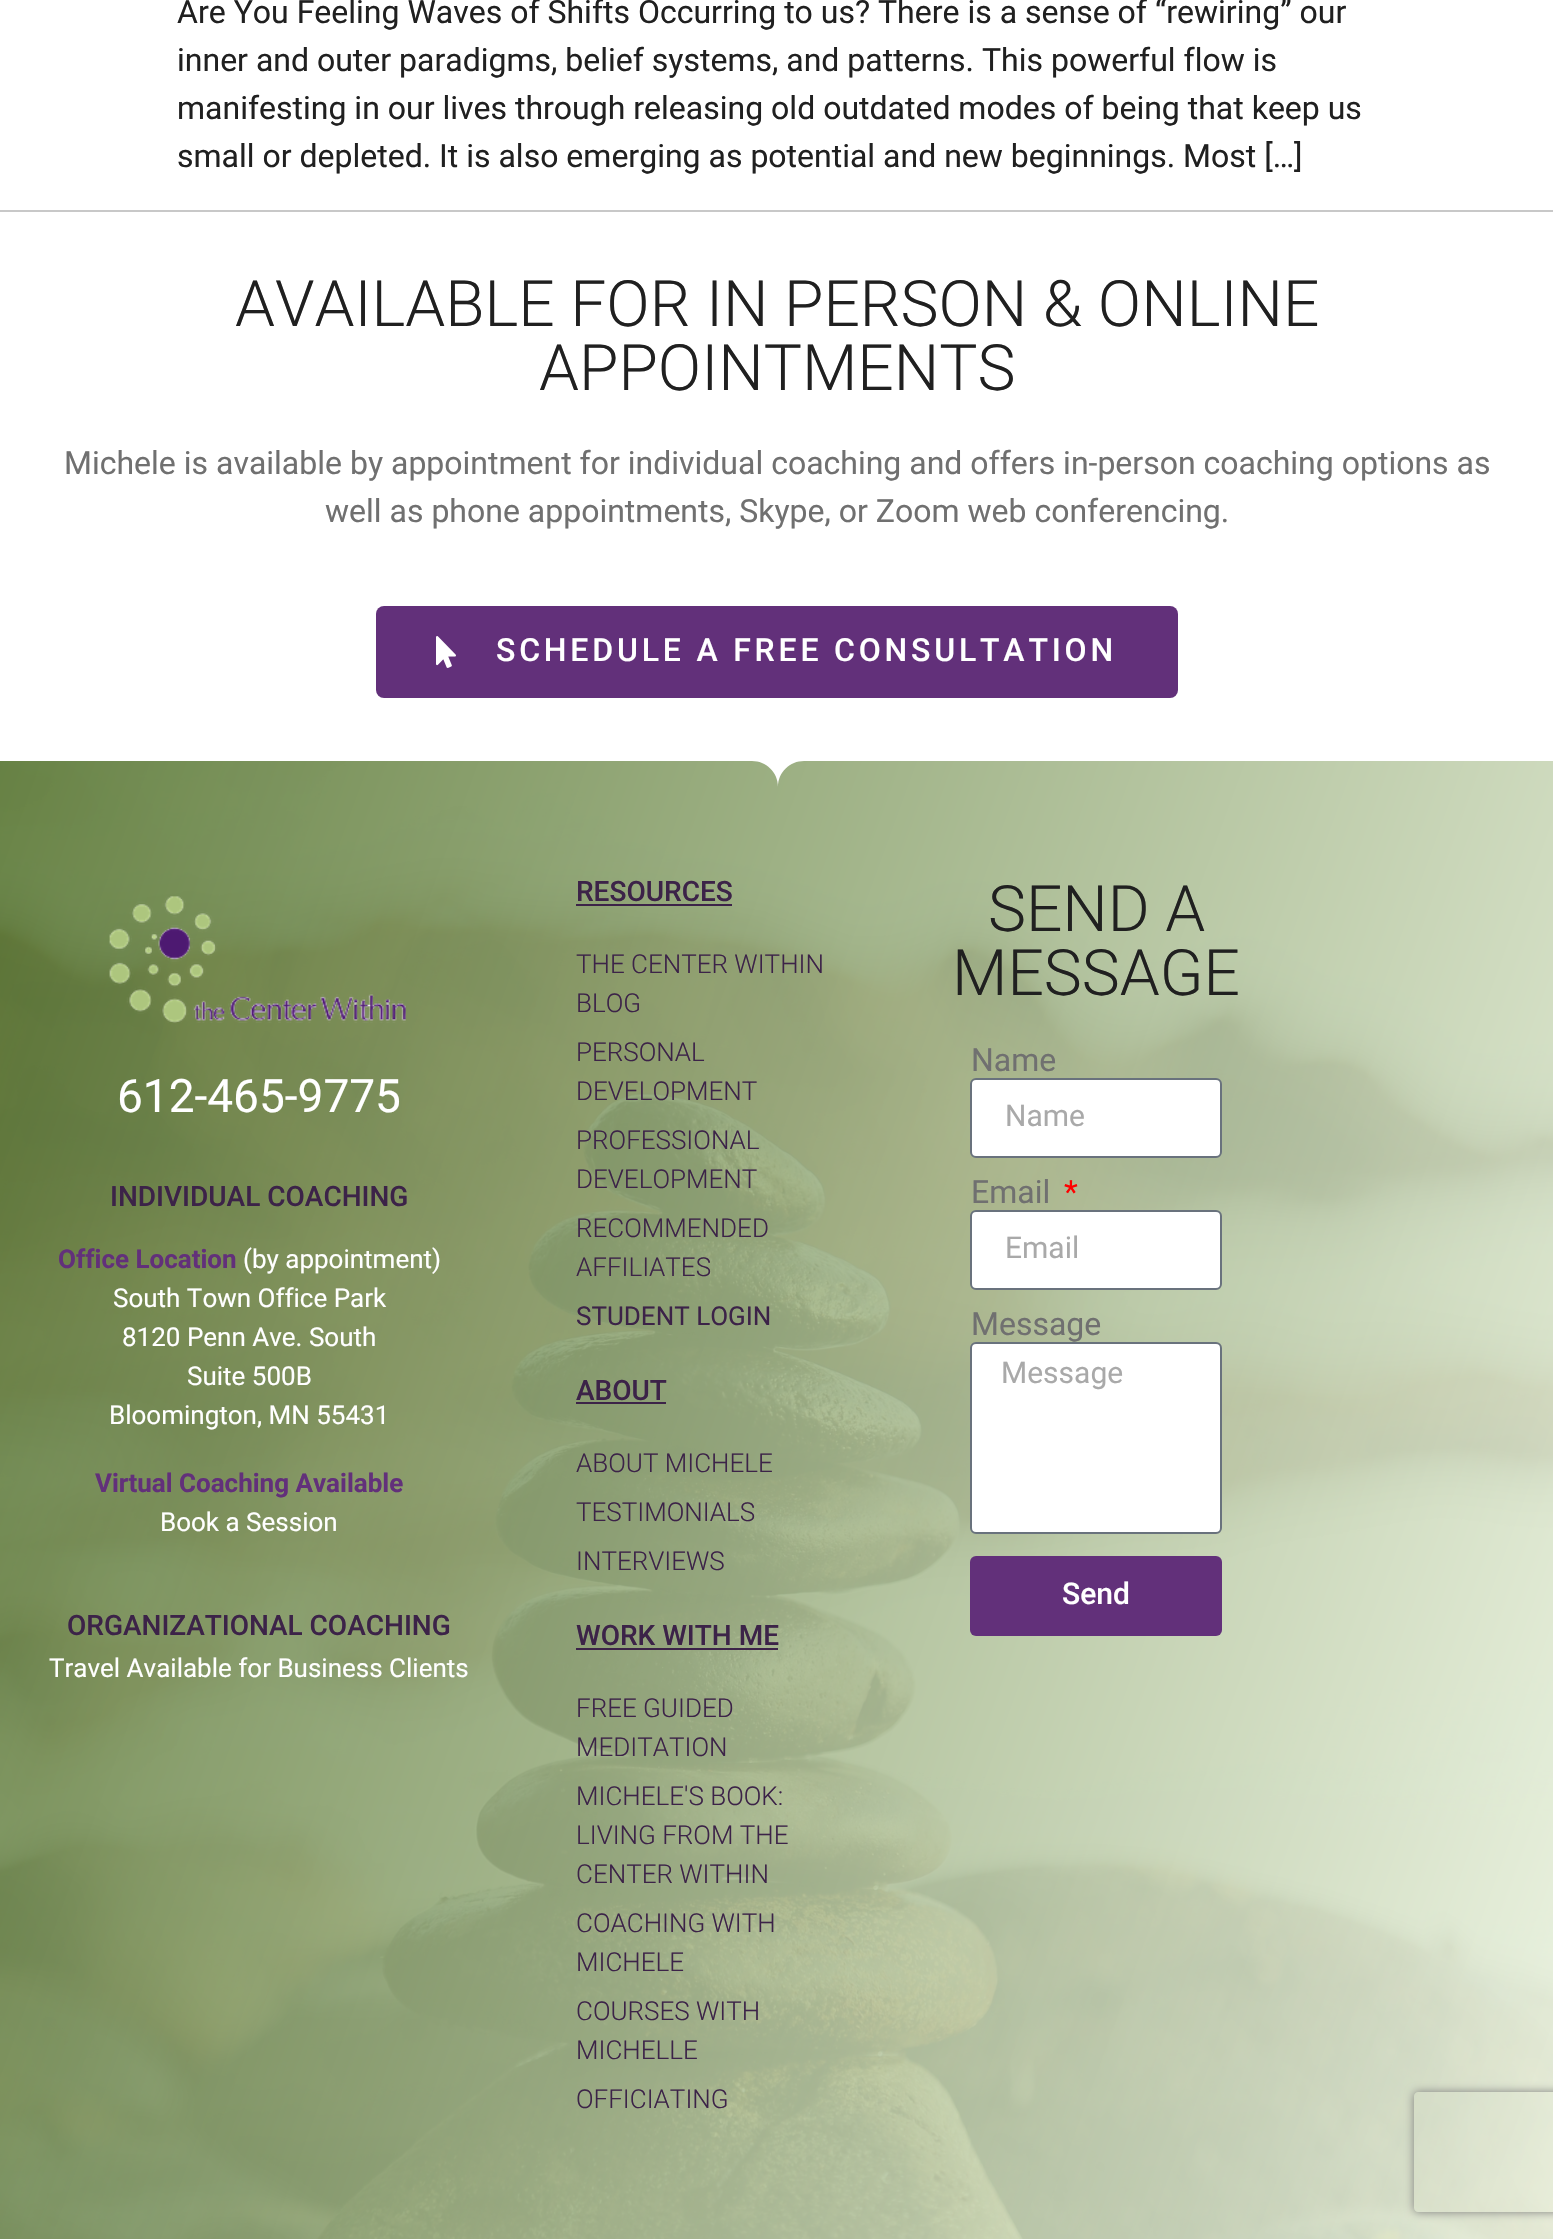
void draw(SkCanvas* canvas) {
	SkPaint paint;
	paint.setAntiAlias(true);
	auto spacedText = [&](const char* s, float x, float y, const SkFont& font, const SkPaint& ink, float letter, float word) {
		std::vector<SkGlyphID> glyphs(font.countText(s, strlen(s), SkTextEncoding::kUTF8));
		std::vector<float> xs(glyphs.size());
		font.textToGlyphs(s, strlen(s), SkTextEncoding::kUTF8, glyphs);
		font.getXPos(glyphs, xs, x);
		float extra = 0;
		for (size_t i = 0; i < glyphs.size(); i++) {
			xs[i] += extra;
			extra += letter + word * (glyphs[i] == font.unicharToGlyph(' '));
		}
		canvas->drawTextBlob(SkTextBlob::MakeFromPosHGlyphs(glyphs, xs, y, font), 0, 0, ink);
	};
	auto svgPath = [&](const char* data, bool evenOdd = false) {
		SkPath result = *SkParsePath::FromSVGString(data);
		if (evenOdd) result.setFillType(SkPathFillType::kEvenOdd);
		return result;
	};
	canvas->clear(0xffffffff);
	SkFont f1(fontMgr->matchFamilyStyle("Roboto", SkFontStyle::Normal()), 32);
	f1.setSubpixel(true);
	paint.setColor(0xff202020);
	canvas->drawString("Are You Feeling Waves of Shifts Occurring to us? There is a sense of “rewiring” our", 177, 23, f1, paint);
	canvas->drawString("inner and outer paradigms, belief systems, and patterns. This powerful flow is", 177, 71, f1, paint);
	canvas->drawString("manifesting in our lives through releasing old outdated modes of being that keep us", 177, 119, f1, paint);
	canvas->drawString("small or depleted. It is also emerging as potential and new beginnings. Most […]", 177, 167, f1, paint);
	paint.setColor(0xffc8c8c8);
	canvas->drawRect(SkRect::MakeXYWH(0, 210, 1553, 2), paint);
	SkFont f2(fontMgr->matchFamilyStyle("Roboto", SkFontStyle(300, SkFontStyle::kNormal_Width, SkFontStyle::kUpright_Slant)), 64);
	f2.setSubpixel(true);
	paint.setColor(0xff202020);
	canvas->drawString("AVAILABLE FOR IN PERSON & ONLINE", 235, 326, f2, paint);
	canvas->drawString("APPOINTMENTS", 539, 390, f2, paint);
	paint.setColor(0xff707070);
	canvas->drawString("Michele is available by appointment for individual coaching and offers in-person coaching options as", 64, 474, f1, paint);
	canvas->drawString("well as phone appointments, Skype, or Zoom web conferencing.", 325, 522, f1, paint);
	paint.setColor(0xff62307a);
	canvas->drawRoundRect(SkRect::MakeXYWH(376, 606, 802, 92), 8, 8, paint);
	canvas->drawImageRect(SkImages::DeferredFromEncodedData(SkData::MakeFromFileName("img1.png")), SkRect::MakeXYWH(436, 636, 20, 32), SkSamplingOptions());
	SkFont f3(fontMgr->matchFamilyStyle("Roboto", SkFontStyle(500, SkFontStyle::kNormal_Width, SkFontStyle::kUpright_Slant)), 32);
	f3.setSubpixel(true);
	paint.setColor(0xffffffff);
	spacedText("SCHEDULE A FREE CONSULTATION", 496, 661, f3, paint, 3.8, 0);
	canvas->drawImageRect(SkImages::DeferredFromEncodedData(SkData::MakeFromFileName("img2.png")), SkRect::MakeXYWH(0, 761, 1553, 1478), SkSamplingOptions());
	canvas->drawPath(svgPath("M0 756V761H752C766 761 778 772 778 787C778 772 790 761 804 761H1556V756Z"), paint);
	canvas->drawImageRect(SkImages::DeferredFromEncodedData(SkData::MakeFromFileName("img3.png")), SkRect::MakeXYWH(109, 896, 297, 127), SkSamplingOptions());
	SkFont f4(fontMgr->matchFamilyStyle("Roboto", SkFontStyle::Normal()), 46);
	f4.setSubpixel(true);
	canvas->drawString("612-465-9775", 117, 1112, f4, paint);
	SkFont f5(fontMgr->matchFamilyStyle("Roboto", SkFontStyle(500, SkFontStyle::kNormal_Width, SkFontStyle::kUpright_Slant)), 28);
	f5.setSubpixel(true);
	paint.setColor(0xff3c2348);
	canvas->drawString("INDIVIDUAL COACHING", 110, 1206, f5, paint);
	SkFont f6(fontMgr->matchFamilyStyle("Roboto", SkFontStyle::Bold()), 26);
	f6.setSubpixel(true);
	paint.setColor(0xff62307a);
	canvas->drawString("Office Location", 58, 1268, f6, paint);
	SkFont f7(fontMgr->matchFamilyStyle("Roboto", SkFontStyle::Normal()), 26);
	f7.setSubpixel(true);
	paint.setColor(0xffffffff);
	canvas->drawString("(by appointment)", 243, 1268, f7, paint);
	canvas->drawString("South Town Office Park", 113, 1307, f7, paint);
	canvas->drawString("8120 Penn Ave. South", 122, 1346, f7, paint);
	canvas->drawString("Suite 500B", 187, 1385, f7, paint);
	canvas->drawString("Bloomington, MN 55431", 109, 1424, f7, paint);
	paint.setColor(0xff62307a);
	canvas->drawString("Virtual Coaching Available", 95, 1492, f6, paint);
	paint.setColor(0xffffffff);
	canvas->drawString("Book a Session", 160, 1531, f7, paint);
	paint.setColor(0xff3c2348);
	canvas->drawString("ORGANIZATIONAL COACHING", 67, 1635, f5, paint);
	paint.setColor(0xffffffff);
	canvas->drawString("Travel Available for Business Clients", 49, 1677, f7, paint);
	paint.setColor(0xff3c2348);
	canvas->drawString("RESOURCES", 576, 901, f5, paint);
	canvas->drawRect(SkRect::MakeXYWH(576, 904, 156, 2), paint);
	SkFont f8(fontMgr->matchFamilyStyle("Roboto", SkFontStyle(300, SkFontStyle::kNormal_Width, SkFontStyle::kUpright_Slant)), 26);
	f8.setSubpixel(true);
	canvas->drawString("THE CENTER WITHIN", 576, 973, f8, paint);
	canvas->drawString("BLOG", 576, 1012, f8, paint);
	canvas->drawString("PERSONAL", 576, 1061, f8, paint);
	canvas->drawString("DEVELOPMENT", 576, 1100, f8, paint);
	canvas->drawString("PROFESSIONAL", 576, 1149, f8, paint);
	canvas->drawString("DEVELOPMENT", 576, 1188, f8, paint);
	canvas->drawString("RECOMMENDED", 576, 1237, f8, paint);
	canvas->drawString("AFFILIATES", 576, 1276, f8, paint);
	canvas->drawString("STUDENT LOGIN", 576, 1325, f7, paint);
	canvas->drawString("ABOUT", 576, 1400, f5, paint);
	canvas->drawRect(SkRect::MakeXYWH(576, 1402, 90, 2), paint);
	canvas->drawString("ABOUT MICHELE", 576, 1472, f8, paint);
	canvas->drawString("TESTIMONIALS", 576, 1521, f8, paint);
	canvas->drawString("INTERVIEWS", 576, 1570, f8, paint);
	canvas->drawString("WORK WITH ME", 576, 1645, f5, paint);
	canvas->drawRect(SkRect::MakeXYWH(576, 1648, 202, 2), paint);
	canvas->drawString("FREE GUIDED", 576, 1717, f8, paint);
	canvas->drawString("MEDITATION", 576, 1756, f8, paint);
	canvas->drawString("MICHELE'S BOOK:", 576, 1805, f8, paint);
	canvas->drawString("LIVING FROM THE", 576, 1844, f8, paint);
	canvas->drawString("CENTER WITHIN", 576, 1883, f8, paint);
	canvas->drawString("COACHING WITH", 576, 1932, f8, paint);
	canvas->drawString("MICHELE", 576, 1971, f8, paint);
	canvas->drawString("COURSES WITH", 576, 2020, f8, paint);
	canvas->drawString("MICHELLE", 576, 2059, f8, paint);
	canvas->drawString("OFFICIATING", 576, 2108, f8, paint);
	paint.setColor(0xff202020);
	canvas->drawString("SEND A", 988, 931, f2, paint);
	canvas->drawString("MESSAGE", 952, 995, f2, paint);
	paint.setColor(0xff707070);
	canvas->drawString("Name", 971, 1071, f1, paint);
	paint.setColor(0xffffffff);
	canvas->drawRoundRect(SkRect::MakeXYWH(971, 1079, 250, 78), 5, 5, paint);
	paint.setStroke(true);
	paint.setStrokeWidth(2);
	paint.setColor(0xff69727d);
	canvas->drawRoundRect(SkRect::MakeXYWH(971, 1079, 250, 78), 5, 5, paint);
	SkFont f9(fontMgr->matchFamilyStyle("Roboto", SkFontStyle::Normal()), 30);
	f9.setSubpixel(true);
	paint.setStroke(false);
	paint.setColor(0xffa9a9a9);
	canvas->drawString("Name", 1005, 1126, f9, paint);
	paint.setColor(0xff707070);
	canvas->drawString("Email", 971, 1203, f1, paint);
	paint.setColor(0xffff0000);
	canvas->drawString("*", 1064, 1203, f1, paint);
	paint.setColor(0xffffffff);
	canvas->drawRoundRect(SkRect::MakeXYWH(971, 1211, 250, 78), 5, 5, paint);
	paint.setStroke(true);
	paint.setColor(0xff69727d);
	canvas->drawRoundRect(SkRect::MakeXYWH(971, 1211, 250, 78), 5, 5, paint);
	paint.setStroke(false);
	paint.setColor(0xffa9a9a9);
	canvas->drawString("Email", 1005, 1258, f9, paint);
	paint.setColor(0xff707070);
	canvas->drawString("Message", 971, 1335, f1, paint);
	paint.setColor(0xffffffff);
	canvas->drawRoundRect(SkRect::MakeXYWH(971, 1343, 250, 190), 5, 5, paint);
	paint.setStroke(true);
	paint.setColor(0xff69727d);
	canvas->drawRoundRect(SkRect::MakeXYWH(971, 1343, 250, 190), 5, 5, paint);
	paint.setStroke(false);
	paint.setColor(0xffa9a9a9);
	canvas->drawString("Message", 1001, 1383, f9, paint);
	paint.setColor(0xff62307a);
	canvas->drawRoundRect(SkRect::MakeXYWH(970, 1556, 252, 80), 6, 6, paint);
	SkFont f10(fontMgr->matchFamilyStyle("Roboto", SkFontStyle(500, SkFontStyle::kNormal_Width, SkFontStyle::kUpright_Slant)), 30);
	f10.setSubpixel(true);
	paint.setColor(0xffffffff);
	canvas->drawString("Send", 1062, 1604, f10, paint);
	canvas->save();
	canvas->clipPath(svgPath("M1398 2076H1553V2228H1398ZM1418 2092H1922C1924 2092 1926 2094 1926 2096V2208C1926 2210 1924 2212 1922 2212H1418C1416 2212 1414 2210 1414 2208V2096C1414 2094 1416 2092 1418 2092Z", true), true);
	paint.setColor(0xff808080);
	paint.setMaskFilter(SkMaskFilter::MakeBlur(kNormal_SkBlurStyle, 5));
	canvas->drawRoundRect(SkRect::MakeXYWH(1414, 2092, 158, 120), 4, 4, paint);
	paint.setMaskFilter(nullptr);
	canvas->restore();
}
